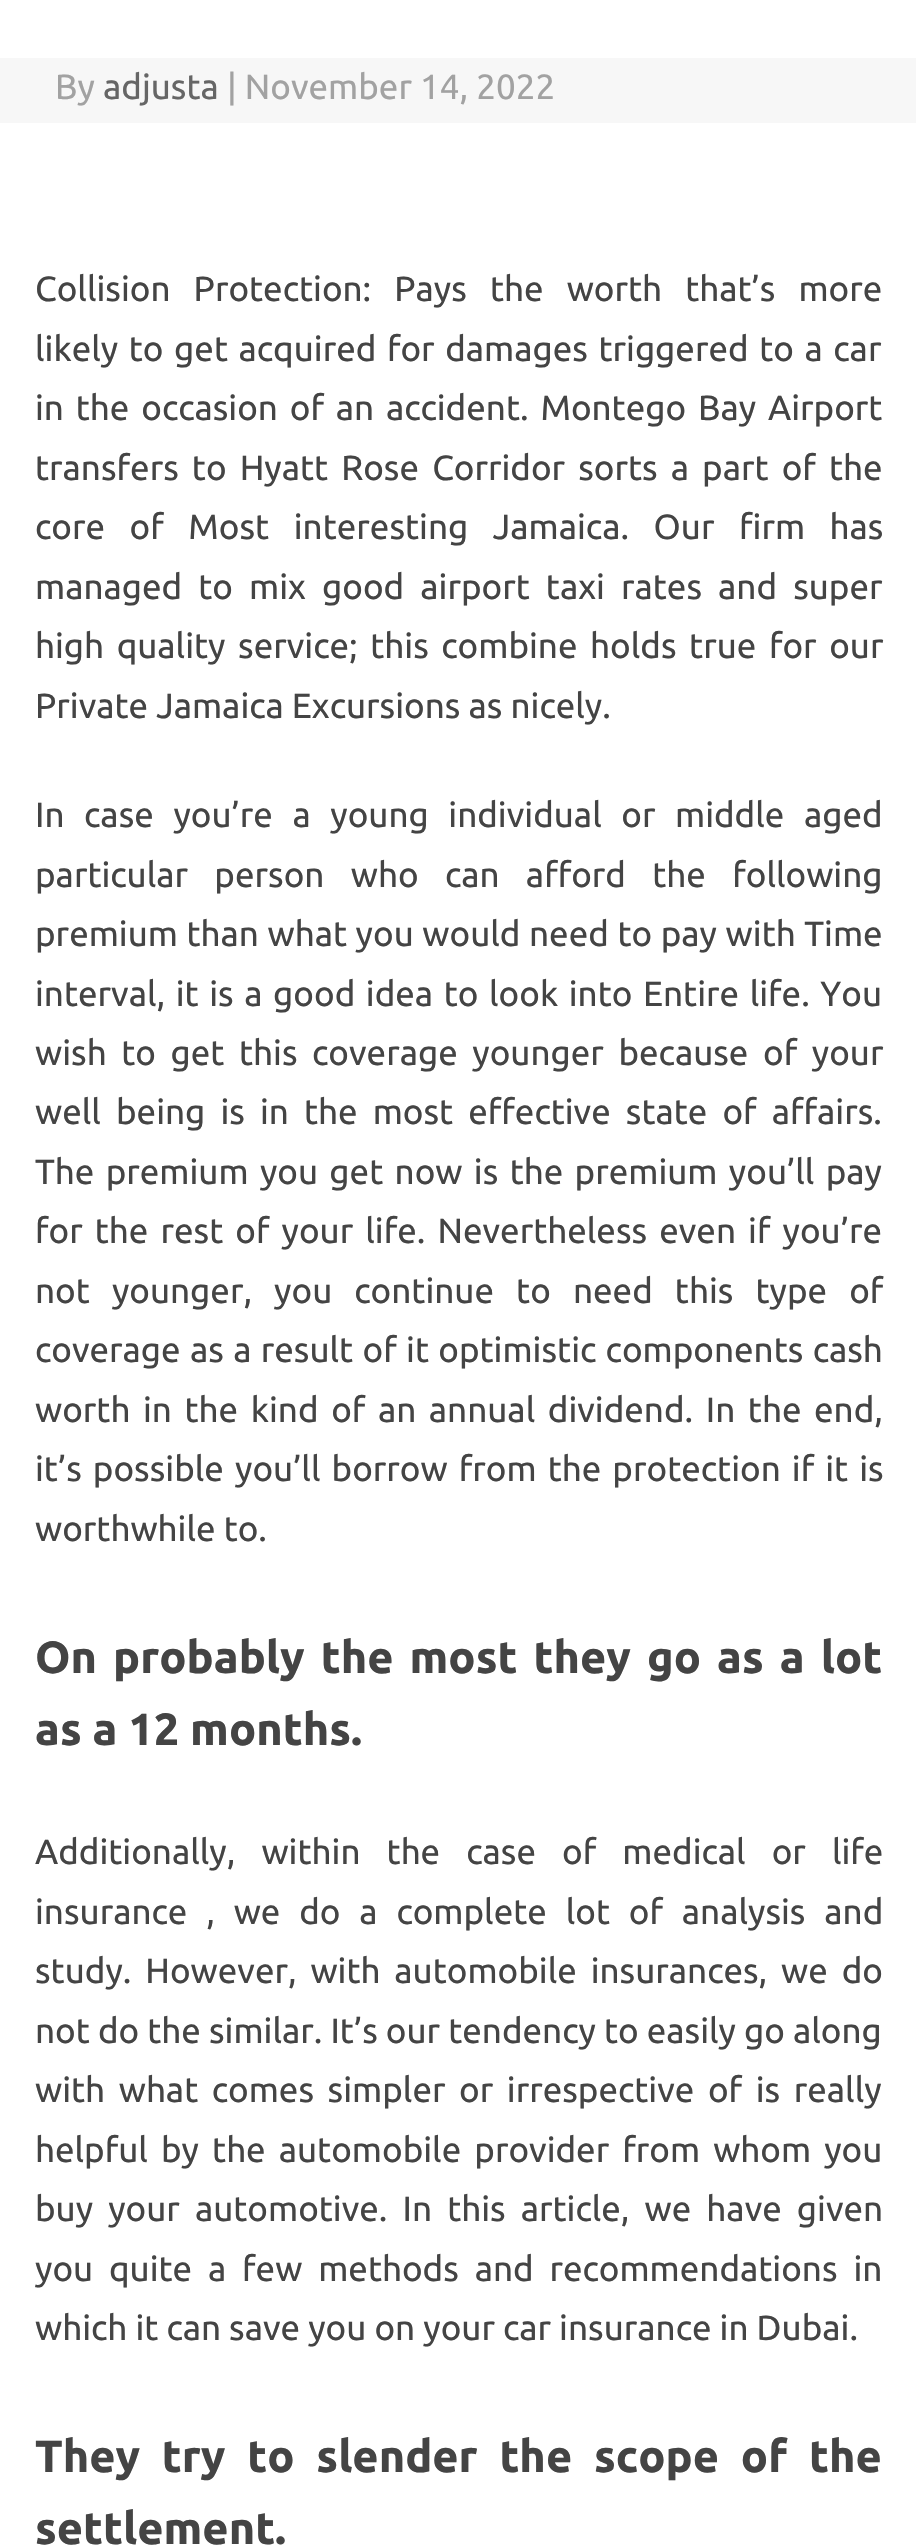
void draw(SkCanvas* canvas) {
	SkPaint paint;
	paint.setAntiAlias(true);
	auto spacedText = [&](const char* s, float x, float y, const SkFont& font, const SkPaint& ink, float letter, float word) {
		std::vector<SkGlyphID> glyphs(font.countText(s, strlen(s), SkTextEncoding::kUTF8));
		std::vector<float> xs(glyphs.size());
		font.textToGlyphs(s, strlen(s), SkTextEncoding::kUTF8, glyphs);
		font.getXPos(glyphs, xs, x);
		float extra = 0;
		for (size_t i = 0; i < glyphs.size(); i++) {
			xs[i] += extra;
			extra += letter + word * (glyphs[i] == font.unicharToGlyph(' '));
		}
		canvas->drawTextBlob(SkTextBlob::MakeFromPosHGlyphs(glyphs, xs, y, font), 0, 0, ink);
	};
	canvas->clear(0xffffffff);
	paint.setColor(0xfff7f7f7);
	canvas->drawRect(SkRect::MakeXYWH(0, 58, 916, 65), paint);
	SkFont f1(fontMgr->matchFamilyStyle("Ubuntu", SkFontStyle::Normal()), 35);
	f1.setSubpixel(true);
	paint.setColor(0xffa2a2a2);
	canvas->drawString("By", 55, 99, f1, paint);
	paint.setColor(0xff666666);
	canvas->drawString("adjusta", 103, 99, f1, paint);
	paint.setColor(0xffa2a2a2);
	canvas->drawString("| November 14, 2022", 227, 99, f1, paint);
	paint.setColor(0xff444444);
	spacedText("Collision Protection: Pays the worth that’s more", 35, 301, f1, paint, 0, 15);
	spacedText("likely to get acquired for damages triggered to a car", 35, 361, f1, paint, 0, 2.5);
	spacedText("in the occasion of an accident. Montego Bay Airport", 35, 420, f1, paint, 0, 3.75);
	spacedText("transfers to Hyatt Rose Corridor sorts a part of the", 35, 480, f1, paint, 0, 5);
	spacedText("core of Most interesting Jamaica. Our firm has", 35, 539, f1, paint, 0, 16.5);
	spacedText("managed to mix good airport taxi rates and super", 35, 599, f1, paint, 0, 8);
	spacedText("high quality service; this combine holds true for our", 35, 658, f1, paint, 0, 4.5);
	canvas->drawString("Private Jamaica Excursions as nicely.", 35, 718, f1, paint);
	spacedText("In case you’re a young individual or middle aged", 35, 827, f1, paint, 0, 11.5);
	spacedText("particular person who can afford the following", 35, 887, f1, paint, 0, 18.25);
	spacedText("premium than what you would need to pay with Time", 35, 946, f1, paint, 0, 0.5);
	spacedText("interval, it is a good idea to look into Entire life. You", 35, 1006, f1, paint, 0, 2.5);
	spacedText("wish to get this coverage younger because of your", 35, 1065, f1, paint, 0, 6.5);
	spacedText("well being is in the most effective state of affairs.", 35, 1124, f1, paint, 0, 7);
	spacedText("The premium you get now is the premium you’ll pay", 35, 1184, f1, paint, 0, 3.25);
	spacedText("for the rest of your life. Nevertheless even if you’re", 35, 1243, f1, paint, 0, 4);
	spacedText("not younger, you continue to need this type of", 35, 1303, f1, paint, 0, 14);
	spacedText("coverage as a result of it optimistic components cash", 35, 1362, f1, paint, 0, 1.25);
	spacedText("worth in the kind of an annual dividend. In the end,", 35, 1422, f1, paint, 0, 4.5);
	spacedText("it’s possible you’ll borrow from the protection if it is", 35, 1481, f1, paint, 0, 3);
	canvas->drawString("worthwhile to.", 35, 1541, f1, paint);
	SkFont f2(fontMgr->matchFamilyStyle("Ubuntu", SkFontStyle::Bold()), 45);
	f2.setSubpixel(true);
	spacedText("On probably the most they go as a lot", 35, 1673, f2, paint, 0, 5.25);
	canvas->drawString("as a 12 months.", 35, 1745, f2, paint);
	spacedText("Additionally, within the case of medical or life", 35, 1864, f1, paint, 0, 18);
	spacedText("insurance , we do a complete lot of analysis and", 35, 1924, f1, paint, 0, 10.75);
	spacedText("study. However, with automobile insurances, we do", 35, 1983, f1, paint, 0, 5.75);
	canvas->drawString("not do the similar. It’s our tendency to easily go along", 35, 2043, f1, paint);
	spacedText("with what comes simpler or irrespective of is really", 35, 2102, f1, paint, 0, 5.5);
	spacedText("helpful by the automobile provider from whom you", 35, 2162, f1, paint, 0, 5);
	spacedText("buy your automotive. In this article, we have given", 35, 2221, f1, paint, 0, 7);
	spacedText("you quite a few methods and recommendations in", 35, 2281, f1, paint, 0, 7.75);
	canvas->drawString("which it can save you on your car insurance in Dubai.", 35, 2340, f1, paint);
	spacedText("They try to slender the scope of the", 35, 2472, f2, paint, 0, 11);
	canvas->drawString("settlement.", 35, 2544, f2, paint);
}
